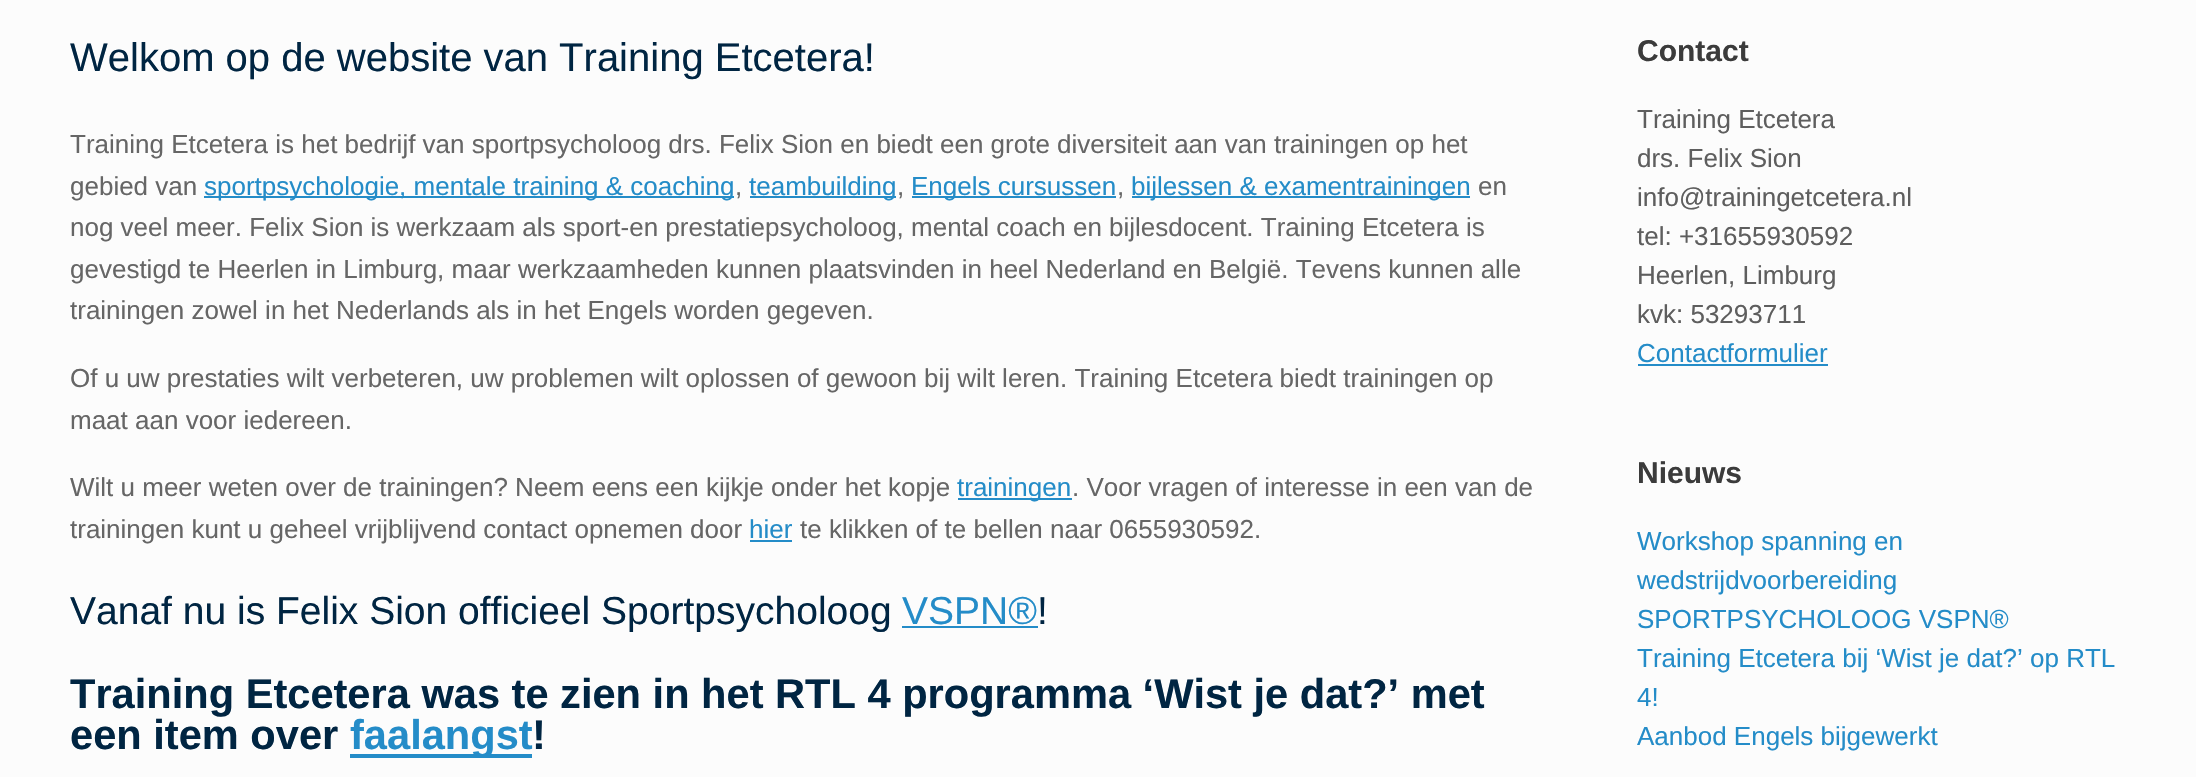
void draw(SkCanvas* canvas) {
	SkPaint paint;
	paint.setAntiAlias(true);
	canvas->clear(0xfffcfcfc);
	SkFont f1(fontMgr->matchFamilyStyle("Liberation Sans", SkFontStyle::Normal()), 40);
	f1.setSubpixel(true);
	paint.setColor(0xff002542);
	canvas->drawString("Welkom op de website van Training Etcetera!", 70, 71, f1, paint);
	SkFont f2(fontMgr->matchFamilyStyle("Liberation Sans", SkFontStyle::Normal()), 26);
	f2.setSubpixel(true);
	paint.setColor(0xff666666);
	canvas->drawString("Training Etcetera is het bedrijf van sportpsycholoog drs. Felix Sion en biedt een grote diversiteit aan van trainingen op het", 70, 153, f2, paint);
	canvas->drawString("gebied van", 70, 195, f2, paint);
	paint.setColor(0xff248cc8);
	canvas->drawRect(SkRect::MakeXYWH(204, 196, 530, 2), paint);
	canvas->drawString("sportpsychologie, mentale training & coaching", 204, 195, f2, paint);
	paint.setColor(0xff666666);
	canvas->drawString(",", 735, 195, f2, paint);
	paint.setColor(0xff248cc8);
	canvas->drawRect(SkRect::MakeXYWH(750, 196, 146, 2), paint);
	canvas->drawString("teambuilding", 749, 195, f2, paint);
	paint.setColor(0xff666666);
	canvas->drawString(",", 897, 195, f2, paint);
	paint.setColor(0xff248cc8);
	canvas->drawRect(SkRect::MakeXYWH(912, 196, 204, 2), paint);
	canvas->drawString("Engels cursussen", 911, 195, f2, paint);
	paint.setColor(0xff666666);
	canvas->drawString(",", 1117, 195, f2, paint);
	paint.setColor(0xff248cc8);
	canvas->drawRect(SkRect::MakeXYWH(1132, 196, 338, 2), paint);
	canvas->drawString("bijlessen & examentrainingen", 1131, 195, f2, paint);
	paint.setColor(0xff666666);
	canvas->drawString("en", 1478, 195, f2, paint);
	canvas->drawString("nog veel meer. Felix Sion is werkzaam als sport-en prestatiepsycholoog, mental coach en bijlesdocent. Training Etcetera is", 70, 236, f2, paint);
	canvas->drawString("gevestigd te Heerlen in Limburg, maar werkzaamheden kunnen plaatsvinden in heel Nederland en België. Tevens kunnen alle", 70, 278, f2, paint);
	canvas->drawString("trainingen zowel in het Nederlands als in het Engels worden gegeven.", 70, 319, f2, paint);
	canvas->drawString("Of u uw prestaties wilt verbeteren, uw problemen wilt oplossen of gewoon bij wilt leren. Training Etcetera biedt trainingen op", 70, 387, f2, paint);
	canvas->drawString("maat aan voor iedereen.", 70, 429, f2, paint);
	canvas->drawString("Wilt u meer weten over de trainingen? Neem eens een kijkje onder het kopje", 70, 496, f2, paint);
	paint.setColor(0xff248cc8);
	canvas->drawRect(SkRect::MakeXYWH(958, 498, 114, 2), paint);
	canvas->drawString("trainingen", 957, 496, f2, paint);
	paint.setColor(0xff666666);
	canvas->drawString(". Voor vragen of interesse in een van de", 1072, 496, f2, paint);
	canvas->drawString("trainingen kunt u geheel vrijblijvend contact opnemen door", 70, 538, f2, paint);
	paint.setColor(0xff248cc8);
	canvas->drawString("hier", 749, 538, f2, paint);
	canvas->drawRect(SkRect::MakeXYWH(750, 540, 42, 2), paint);
	paint.setColor(0xff666666);
	canvas->drawString("te klikken of te bellen naar 0655930592.", 800, 538, f2, paint);
	SkFont f3(fontMgr->matchFamilyStyle("Liberation Sans", SkFontStyle::Normal()), 39);
	f3.setSubpixel(true);
	paint.setColor(0xff002542);
	canvas->drawString("Vanaf nu is Felix Sion officieel Sportpsycholoog", 70, 624, f3, paint);
	paint.setColor(0xff248cc8);
	canvas->drawString("VSPN®", 902, 624, f3, paint);
	canvas->drawRect(SkRect::MakeXYWH(902, 626, 136, 2), paint);
	paint.setColor(0xff002542);
	canvas->drawString("!", 1037, 624, f3, paint);
	SkFont f4(fontMgr->matchFamilyStyle("Liberation Sans", SkFontStyle::Bold()), 41.6);
	f4.setSubpixel(true);
	canvas->drawString("Training Etcetera was te zien in het RTL 4 programma ‘Wist je dat?’ met", 70, 708, f4, paint);
	canvas->drawString("een item over", 70, 749, f4, paint);
	paint.setColor(0xff248cc8);
	canvas->drawRect(SkRect::MakeXYWH(350, 754, 182, 4), paint);
	canvas->drawString("faalangst", 350, 749, f4, paint);
	paint.setColor(0xff002542);
	canvas->drawString("!", 532, 749, f4, paint);
	SkFont f5(fontMgr->matchFamilyStyle("Liberation Sans", SkFontStyle::Bold()), 30);
	f5.setSubpixel(true);
	paint.setColor(0xff3b3b3b);
	canvas->drawString("Contact", 1637, 61, f5, paint);
	paint.setColor(0xff5e5e5e);
	canvas->drawString("Training Etcetera", 1637, 128, f2, paint);
	canvas->drawString("drs. Felix Sion", 1637, 167, f2, paint);
	canvas->drawString("info@trainingetcetera.nl", 1637, 206, f2, paint);
	canvas->drawString("tel: +31655930592", 1637, 245, f2, paint);
	canvas->drawString("Heerlen, Limburg", 1637, 284, f2, paint);
	canvas->drawString("kvk: 53293711", 1637, 323, f2, paint);
	paint.setColor(0xff248cc8);
	canvas->drawString("Contactformulier", 1637, 362, f2, paint);
	canvas->drawRect(SkRect::MakeXYWH(1638, 364, 190, 2), paint);
	paint.setColor(0xff3b3b3b);
	canvas->drawString("Nieuws", 1637, 483, f5, paint);
	paint.setColor(0xff248cc8);
	canvas->drawString("Workshop spanning en", 1637, 550, f2, paint);
	canvas->drawString("wedstrijdvoorbereiding", 1637, 589, f2, paint);
	canvas->drawString("SPORTPSYCHOLOOG VSPN®", 1637, 628, f2, paint);
	canvas->drawString("Training Etcetera bij ‘Wist je dat?’ op RTL", 1637, 667, f2, paint);
	canvas->drawString("4!", 1637, 706, f2, paint);
	canvas->drawString("Aanbod Engels bijgewerkt", 1637, 745, f2, paint);
}
